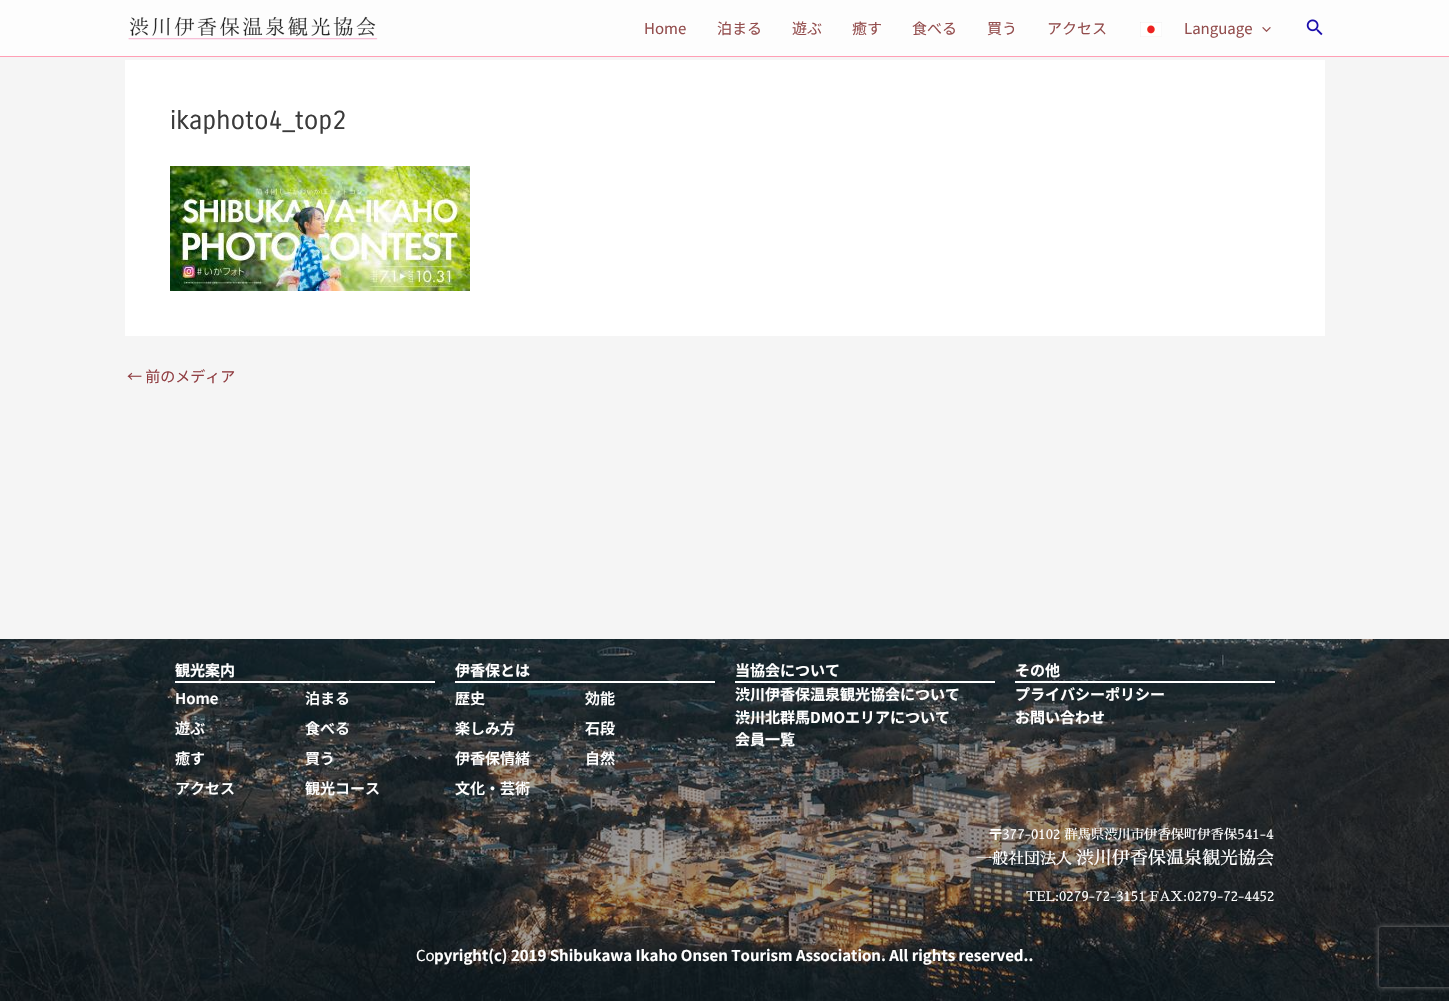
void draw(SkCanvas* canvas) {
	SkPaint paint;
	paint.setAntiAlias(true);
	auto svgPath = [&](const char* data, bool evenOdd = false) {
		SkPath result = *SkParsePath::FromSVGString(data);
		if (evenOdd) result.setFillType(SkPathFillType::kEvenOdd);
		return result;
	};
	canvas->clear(0xfff5f5f5);
	paint.setColor(0xfffdfdfd);
	canvas->drawRect(SkRect::MakeXYWH(0, 0, 1449, 56), paint);
	paint.setColor(0xffff9fb5);
	canvas->drawRect(SkRect::MakeXYWH(0, 56, 1449, 1), paint);
	canvas->drawImageRect(SkImages::DeferredFromEncodedData(SkData::MakeFromFileName("img1.png")), SkRect::MakeXYWH(128, 16, 250, 24), SkSamplingOptions());
	SkFont f1(fontMgr->matchFamilyStyle("Noto Sans JP", SkFontStyle::Normal()), 15);
	f1.setSubpixel(true);
	paint.setColor(0xff934d4d);
	canvas->drawString("Home", 644, 34, f1, paint);
	canvas->drawString("泊まる", 717, 34, f1, paint);
	canvas->drawString("遊ぶ", 792, 34, f1, paint);
	canvas->drawString("癒す", 852, 34, f1, paint);
	canvas->drawString("食べる", 912, 34, f1, paint);
	canvas->drawString("買う", 987, 34, f1, paint);
	canvas->drawString("アクセス", 1047, 34, f1, paint);
	canvas->drawImageRect(SkImages::DeferredFromEncodedData(SkData::MakeFromFileName("img2.png")), SkRect::MakeXYWH(1140, 22, 22, 15), SkSamplingOptions());
	canvas->drawString("Language", 1184, 34, f1, paint);
	canvas->drawImageRect(SkImages::DeferredFromEncodedData(SkData::MakeFromFileName("img3.png")), SkRect::MakeXYWH(1262, 27, 9, 5), SkSamplingOptions());
	canvas->drawImageRect(SkImages::DeferredFromEncodedData(SkData::MakeFromFileName("img4.png")), SkRect::MakeXYWH(1306, 19, 17, 17), SkSamplingOptions());
	paint.setColor(0xffffffff);
	canvas->drawRect(SkRect::MakeXYWH(125, 60, 1200, 276), paint);
	SkFont f2(fontMgr->matchFamilyStyle("Carrois Gothic", SkFontStyle::Normal()), 26);
	f2.setSubpixel(true);
	paint.setColor(0xff3a3a3a);
	canvas->drawString("ikaphoto4_top2", 170, 129, f2, paint);
	canvas->drawImageRect(SkImages::DeferredFromEncodedData(SkData::MakeFromFileName("img5.png")), SkRect::MakeXYWH(170, 166, 300, 125), SkSamplingOptions());
	paint.setColor(0xff913f43);
	canvas->drawString("← 前のメディア", 127, 382, f1, paint);
	canvas->drawImageRect(SkImages::DeferredFromEncodedData(SkData::MakeFromFileName("img6.png")), SkRect::MakeXYWH(0, 639, 1449, 362), SkSamplingOptions());
	paint.setColor(0xffffffff);
	canvas->drawRect(SkRect::MakeXYWH(175, 681, 260, 2), paint);
	SkFont f3(fontMgr->matchFamilyStyle("Noto Sans JP", SkFontStyle::Bold()), 15);
	f3.setSubpixel(true);
	canvas->drawString("観光案内", 175, 676, f3, paint);
	SkFont f4(fontMgr->matchFamilyStyle("Noto Sans JP", SkFontStyle(600, SkFontStyle::kNormal_Width, SkFontStyle::kUpright_Slant)), 15);
	f4.setSubpixel(true);
	canvas->drawString("Home", 175, 704, f4, paint);
	canvas->drawString("遊ぶ", 175, 734, f4, paint);
	canvas->drawString("癒す", 175, 764, f4, paint);
	canvas->drawString("アクセス", 175, 794, f4, paint);
	canvas->drawString("泊まる", 305, 704, f4, paint);
	canvas->drawString("食べる", 305, 734, f4, paint);
	canvas->drawString("買う", 305, 764, f4, paint);
	canvas->drawString("観光コース", 305, 794, f4, paint);
	canvas->drawRect(SkRect::MakeXYWH(455, 681, 260, 2), paint);
	canvas->drawString("伊香保とは", 455, 676, f3, paint);
	canvas->drawString("歴史", 455, 704, f4, paint);
	canvas->drawString("楽しみ方", 455, 734, f4, paint);
	canvas->drawString("伊香保情緒", 455, 764, f4, paint);
	canvas->drawString("文化・芸術", 455, 794, f4, paint);
	canvas->drawString("効能", 585, 704, f4, paint);
	canvas->drawString("石段", 585, 734, f4, paint);
	canvas->drawString("自然", 585, 764, f4, paint);
	canvas->drawRect(SkRect::MakeXYWH(735, 681, 260, 2), paint);
	canvas->drawString("当協会について", 735, 676, f3, paint);
	canvas->drawString("渋川伊香保温泉観光協会について", 735, 700, f3, paint);
	canvas->drawString("渋川北群馬DMOエリアについて", 735, 723, f3, paint);
	canvas->drawString("会員一覧", 735, 745, f3, paint);
	canvas->drawRect(SkRect::MakeXYWH(1015, 681, 260, 2), paint);
	canvas->drawString("その他", 1015, 676, f3, paint);
	canvas->drawString("プライバシーポリシー", 1015, 700, f3, paint);
	canvas->drawString("お問い合わせ", 1015, 723, f3, paint);
	SkFont f5(fontMgr->matchFamilyStyle("Sawarabi Mincho", SkFontStyle::Normal()), 13.3);
	f5.setSubpixel(true);
	canvas->drawString("〒377-0102 群馬県渋川市伊香保町伊香保541-4", 989, 839, f5, paint);
	SkFont f6(fontMgr->matchFamilyStyle("Sawarabi Mincho", SkFontStyle::Normal()), 16);
	f6.setSubpixel(true);
	canvas->drawString("一般社団法人", 976, 864, f6, paint);
	SkFont f7(fontMgr->matchFamilyStyle("Sawarabi Mincho", SkFontStyle::Normal()), 18);
	f7.setSubpixel(true);
	canvas->drawString("渋川伊香保温泉観光協会", 1076, 864, f7, paint);
	canvas->drawString("TEL:0279-72-3151 FAX:0279-72-4452", 1026, 901, f5, paint);
	canvas->drawString("Co", 416, 961, f1, paint);
	canvas->drawString("pyright(c) 2019 Shibukawa Ikaho Onsen Tourism Association. All rights reserved..", 434, 961, f3, paint);
	canvas->save();
	canvas->clipPath(svgPath("M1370 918H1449V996H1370ZM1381 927H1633C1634 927 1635 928 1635 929V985C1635 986 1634 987 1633 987H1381C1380 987 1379 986 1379 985V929C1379 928 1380 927 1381 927Z", true), true);
	paint.setColor(0xff808080);
	paint.setMaskFilter(SkMaskFilter::MakeBlur(kNormal_SkBlurStyle, 2.5));
	canvas->drawRoundRect(SkRect::MakeXYWH(1379, 927, 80, 60), 2, 2, paint);
	paint.setMaskFilter(nullptr);
	canvas->restore();
}
